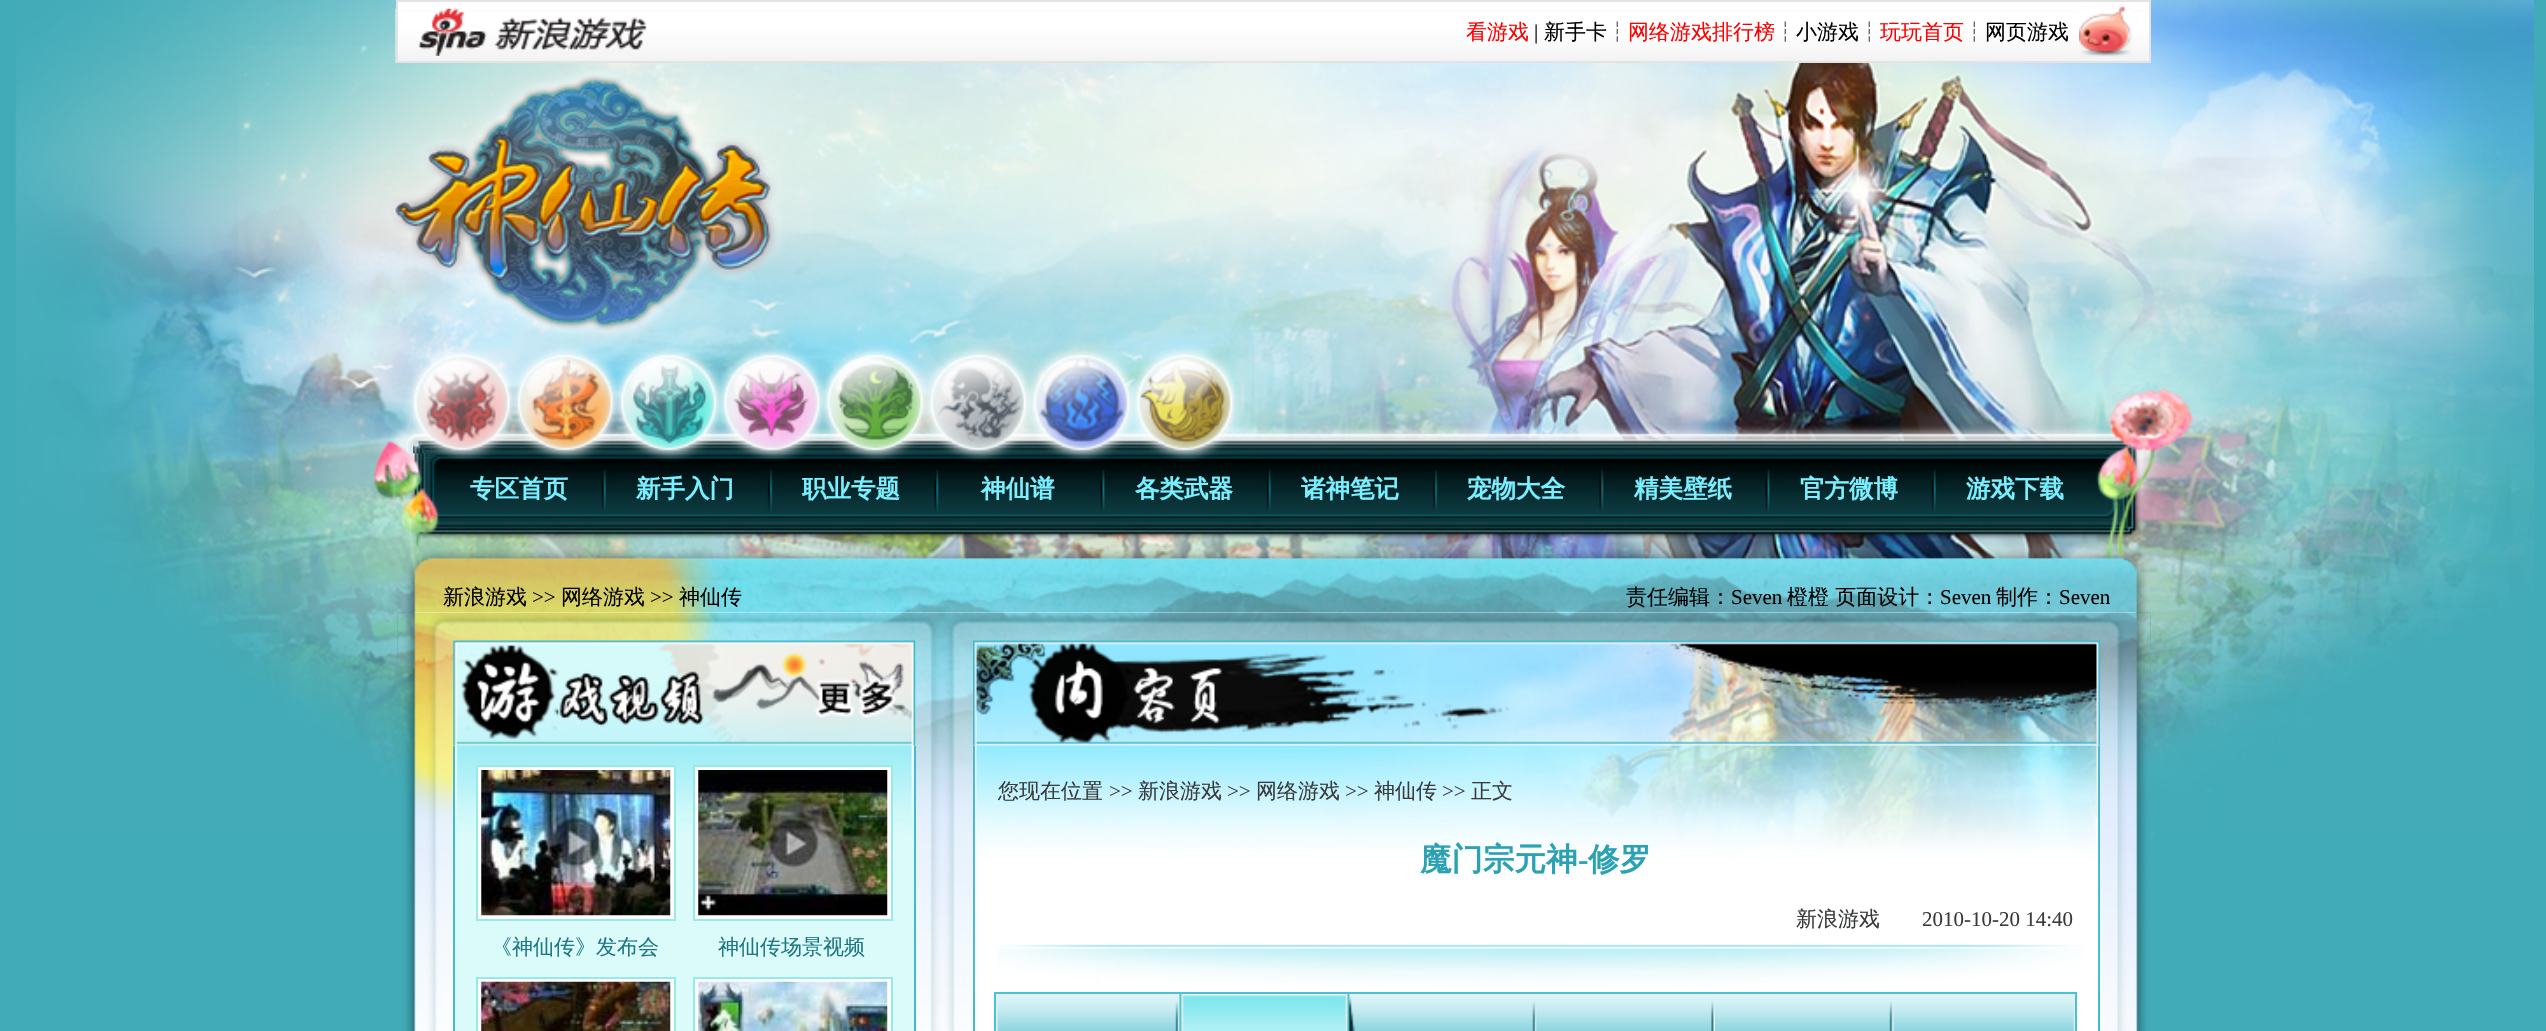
void draw(SkCanvas* canvas) {
	SkPaint paint;
	paint.setAntiAlias(true);
	canvas->clear(0xff42abb8);
	canvas->drawImageRect(SkImages::DeferredFromEncodedData(SkData::MakeFromFileName("img1.png")), SkRect::MakeXYWH(15, 0, 2519, 837), SkSamplingOptions());
	paint.setColor(0xffffffff);
	canvas->drawRect(SkRect::MakeXYWH(398, 2, 1751, 7), paint);
	canvas->drawImageRect(SkImages::DeferredFromEncodedData(SkData::MakeFromFileName("img2.png")), SkRect::MakeXYWH(395, 8, 1754, 55), SkSamplingOptions());
	paint.setStroke(true);
	paint.setStrokeWidth(2);
	paint.setColor(0xffe3e3e3);
	canvas->drawRect(SkRect::MakeXYWH(397, 1, 1753, 61), paint);
	canvas->drawImageRect(SkImages::DeferredFromEncodedData(SkData::MakeFromFileName("img3.png")), SkRect::MakeXYWH(418, 8, 69, 48), SkSamplingOptions());
	canvas->drawImageRect(SkImages::DeferredFromEncodedData(SkData::MakeFromFileName("img4.png")), SkRect::MakeXYWH(494, 17, 153, 33), SkSamplingOptions());
	SkFont f1(fontMgr->matchFamilyStyle("WenQuanYi Zen Hei", SkFontStyle(500, SkFontStyle::kNormal_Width, SkFontStyle::kUpright_Slant)), 21);
	f1.setSubpixel(true);
	paint.setStroke(false);
	paint.setColor(0xffff0000);
	canvas->drawString("看游戏", 1466, 39, f1, paint);
	SkFont f2(fontMgr->matchFamilyStyle("Liberation Serif", SkFontStyle::Normal()), 21);
	f2.setSubpixel(true);
	paint.setColor(0xff000000);
	canvas->drawString("|", 1534, 39, f2, paint);
	canvas->drawString("新手卡┆", 1544, 39, f1, paint);
	paint.setColor(0xffff0000);
	canvas->drawString("网络游戏排行榜", 1628, 39, f1, paint);
	paint.setColor(0xff000000);
	canvas->drawString("┆小游戏┆", 1775, 39, f1, paint);
	paint.setColor(0xffff0000);
	canvas->drawString("玩玩首页", 1880, 39, f1, paint);
	paint.setColor(0xff000000);
	canvas->drawString("┆网页游戏", 1964, 39, f1, paint);
	canvas->drawImageRect(SkImages::DeferredFromEncodedData(SkData::MakeFromFileName("img5.png")), SkRect::MakeXYWH(2079, 6, 53, 51), SkSamplingOptions());
	canvas->drawImageRect(SkImages::DeferredFromEncodedData(SkData::MakeFromFileName("img6.png")), SkRect::MakeXYWH(413, 352, 102, 102), SkSamplingOptions());
	canvas->drawImageRect(SkImages::DeferredFromEncodedData(SkData::MakeFromFileName("img7.png")), SkRect::MakeXYWH(514, 352, 102, 102), SkSamplingOptions());
	canvas->drawImageRect(SkImages::DeferredFromEncodedData(SkData::MakeFromFileName("img8.png")), SkRect::MakeXYWH(616, 352, 102, 102), SkSamplingOptions());
	canvas->drawImageRect(SkImages::DeferredFromEncodedData(SkData::MakeFromFileName("img9.png")), SkRect::MakeXYWH(717, 352, 107, 102), SkSamplingOptions());
	canvas->drawImageRect(SkImages::DeferredFromEncodedData(SkData::MakeFromFileName("img10.png")), SkRect::MakeXYWH(824, 352, 102, 102), SkSamplingOptions());
	canvas->drawImageRect(SkImages::DeferredFromEncodedData(SkData::MakeFromFileName("img11.png")), SkRect::MakeXYWH(926, 352, 103, 102), SkSamplingOptions());
	canvas->drawImageRect(SkImages::DeferredFromEncodedData(SkData::MakeFromFileName("img12.png")), SkRect::MakeXYWH(1029, 352, 103, 102), SkSamplingOptions());
	canvas->drawImageRect(SkImages::DeferredFromEncodedData(SkData::MakeFromFileName("img13.png")), SkRect::MakeXYWH(1132, 352, 105, 102), SkSamplingOptions());
	SkFont f3(fontMgr->matchFamilyStyle("WenQuanYi Zen Hei", SkFontStyle::Bold()), 24.5);
	f3.setSubpixel(true);
	paint.setColor(0xff79efff);
	canvas->drawString("专区首页", 470, 497, f3, paint);
	canvas->drawString("新手入门", 636, 497, f3, paint);
	canvas->drawString("职业专题", 802, 497, f3, paint);
	canvas->drawString("神仙谱", 981, 497, f3, paint);
	canvas->drawString("各类武器", 1135, 497, f3, paint);
	canvas->drawString("诸神笔记", 1301, 497, f3, paint);
	canvas->drawString("宠物大全", 1467, 497, f3, paint);
	canvas->drawString("精美壁纸", 1634, 497, f3, paint);
	canvas->drawString("官方微博", 1800, 497, f3, paint);
	canvas->drawString("游戏下载", 1966, 497, f3, paint);
	paint.setColor(0xff000000);
	canvas->drawString("新浪游戏", 443, 604, f1, paint);
	canvas->drawString(">>", 532, 604, f2, paint);
	canvas->drawString("网络游戏", 561, 604, f1, paint);
	canvas->drawString(">>", 650, 604, f2, paint);
	canvas->drawString("神仙传", 679, 604, f1, paint);
	canvas->drawString("责任编辑：", 1626, 604, f1, paint);
	canvas->drawString("Seven", 1731, 604, f2, paint);
	canvas->drawString("橙橙 页面设计：", 1787, 604, f1, paint);
	canvas->drawString("Seven", 1940, 604, f2, paint);
	canvas->drawString("制作：", 1996, 604, f1, paint);
	canvas->drawString("Seven", 2059, 604, f2, paint);
	canvas->drawImageRect(SkImages::DeferredFromEncodedData(SkData::MakeFromFileName("img14.png")), SkRect::MakeXYWH(397, 612, 1754, 419), SkSamplingOptions());
	canvas->drawImageRect(SkImages::DeferredFromEncodedData(SkData::MakeFromFileName("img15.png")), SkRect::MakeXYWH(952, 612, 1199, 419), SkSamplingOptions());
	canvas->drawImageRect(SkImages::DeferredFromEncodedData(SkData::MakeFromFileName("img16.png")), SkRect::MakeXYWH(973, 640, 1127, 106), SkSamplingOptions());
	paint.setColor(0xffffffff);
	canvas->drawRect(SkRect::MakeXYWH(975, 992, 1123, 39), paint);
	paint.setColor(0xff44bacf);
	canvas->drawRect(SkRect::MakeXYWH(2098, 746, 2, 285), paint);
	canvas->drawRect(SkRect::MakeXYWH(973, 746, 2, 285), paint);
	canvas->drawImageRect(SkImages::DeferredFromEncodedData(SkData::MakeFromFileName("img17.png")), SkRect::MakeXYWH(974, 745, 1125, 247), SkSamplingOptions());
	paint.setColor(0xff3a3c3c);
	canvas->drawString("您现在位置", 998, 798, f1, paint);
	canvas->drawString(">>", 1109, 798, f2, paint);
	canvas->drawString("新浪游戏", 1138, 798, f1, paint);
	canvas->drawString(">>", 1227, 798, f2, paint);
	canvas->drawString("网络游戏", 1256, 798, f1, paint);
	canvas->drawString(">>", 1345, 798, f2, paint);
	canvas->drawString("神仙传", 1374, 798, f1, paint);
	canvas->drawString(">>", 1442, 798, f2, paint);
	canvas->drawString("正文", 1471, 798, f1, paint);
	SkFont f4(fontMgr->matchFamilyStyle("WenQuanYi Zen Hei", SkFontStyle::Bold()), 31.5);
	f4.setSubpixel(true);
	paint.setColor(0xff2aa2b4);
	canvas->drawString("魔门宗元神", 1420, 870, f4, paint);
	SkFont f5(fontMgr->matchFamilyStyle("Liberation Serif", SkFontStyle::Bold()), 31.5);
	f5.setSubpixel(true);
	canvas->drawString("-", 1578, 870, f5, paint);
	canvas->drawString("修罗", 1588, 870, f4, paint);
	paint.setColor(0xff3a3c3c);
	canvas->drawString("新浪游戏", 1796, 926, f1, paint);
	canvas->drawString("2010-10-20 14:40", 1922, 926, f2, paint);
	canvas->drawImageRect(SkImages::DeferredFromEncodedData(SkData::MakeFromFileName("img18.png")), SkRect::MakeXYWH(996, 994, 1079, 37), SkSamplingOptions());
	paint.setStroke(true);
	paint.setColor(0xff46c4d4);
	canvas->drawRect(SkRect::MakeXYWH(995, 993, 1081, 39), paint);
	canvas->drawImageRect(SkImages::DeferredFromEncodedData(SkData::MakeFromFileName("img19.png")), SkRect::MakeXYWH(1175, 1001, 5, 30), SkSamplingOptions());
	canvas->drawImageRect(SkImages::DeferredFromEncodedData(SkData::MakeFromFileName("img20.png")), SkRect::MakeXYWH(1179, 994, 176, 37), SkSamplingOptions());
	canvas->drawImageRect(SkImages::DeferredFromEncodedData(SkData::MakeFromFileName("img19.png")), SkRect::MakeXYWH(1532, 1001, 5, 30), SkSamplingOptions());
	canvas->drawImageRect(SkImages::DeferredFromEncodedData(SkData::MakeFromFileName("img21.png")), SkRect::MakeXYWH(1536, 1001, 179, 30), SkSamplingOptions());
	canvas->drawImageRect(SkImages::DeferredFromEncodedData(SkData::MakeFromFileName("img19.png")), SkRect::MakeXYWH(1889, 1001, 5, 30), SkSamplingOptions());
	canvas->drawImageRect(SkImages::DeferredFromEncodedData(SkData::MakeFromFileName("img22.png")), SkRect::MakeXYWH(397, 612, 555, 419), SkSamplingOptions());
	canvas->drawImageRect(SkImages::DeferredFromEncodedData(SkData::MakeFromFileName("img23.png")), SkRect::MakeXYWH(453, 640, 463, 106), SkSamplingOptions());
	paint.setStroke(false);
	paint.setColor(0xffdbfbfa);
	canvas->drawRect(SkRect::MakeXYWH(455, 746, 459, 285), paint);
	canvas->drawImageRect(SkImages::DeferredFromEncodedData(SkData::MakeFromFileName("img24.png")), SkRect::MakeXYWH(455, 745, 459, 89), SkSamplingOptions());
	paint.setColor(0xff44bacf);
	canvas->drawRect(SkRect::MakeXYWH(914, 746, 2, 285), paint);
	canvas->drawRect(SkRect::MakeXYWH(453, 746, 2, 285), paint);
	paint.setColor(0xffffffff);
	canvas->drawRect(SkRect::MakeXYWH(477, 766, 198, 154), paint);
	paint.setStroke(true);
	paint.setColor(0xff96eae7);
	canvas->drawRect(SkRect::MakeXYWH(477, 766, 198, 154), paint);
	canvas->drawImageRect(SkImages::DeferredFromEncodedData(SkData::MakeFromFileName("img25.png")), SkRect::MakeXYWH(481, 770, 190, 146), SkSamplingOptions());
	paint.setStroke(false);
	paint.setColor(0xff1d7782);
	canvas->drawString("《神仙传》发布会", 491, 954, f1, paint);
	paint.setColor(0xffffffff);
	canvas->drawRect(SkRect::MakeXYWH(694, 766, 198, 154), paint);
	paint.setStroke(true);
	paint.setColor(0xff96eae7);
	canvas->drawRect(SkRect::MakeXYWH(694, 766, 198, 154), paint);
	canvas->drawImageRect(SkImages::DeferredFromEncodedData(SkData::MakeFromFileName("img26.png")), SkRect::MakeXYWH(698, 770, 190, 146), SkSamplingOptions());
	paint.setStroke(false);
	paint.setColor(0xff1d7782);
	canvas->drawString("神仙传场景视频", 718, 954, f1, paint);
	paint.setColor(0xffffffff);
	canvas->drawRect(SkRect::MakeXYWH(477, 978, 198, 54), paint);
	paint.setStroke(true);
	paint.setColor(0xff96eae7);
	canvas->drawRect(SkRect::MakeXYWH(477, 978, 198, 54), paint);
	canvas->drawImageRect(SkImages::DeferredFromEncodedData(SkData::MakeFromFileName("img27.png")), SkRect::MakeXYWH(481, 981, 190, 50), SkSamplingOptions());
	paint.setStroke(false);
	paint.setColor(0xffffffff);
	canvas->drawRect(SkRect::MakeXYWH(694, 978, 198, 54), paint);
	paint.setStroke(true);
	paint.setColor(0xff96eae7);
	canvas->drawRect(SkRect::MakeXYWH(694, 978, 198, 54), paint);
	canvas->drawImageRect(SkImages::DeferredFromEncodedData(SkData::MakeFromFileName("img28.png")), SkRect::MakeXYWH(698, 981, 190, 50), SkSamplingOptions());
}
